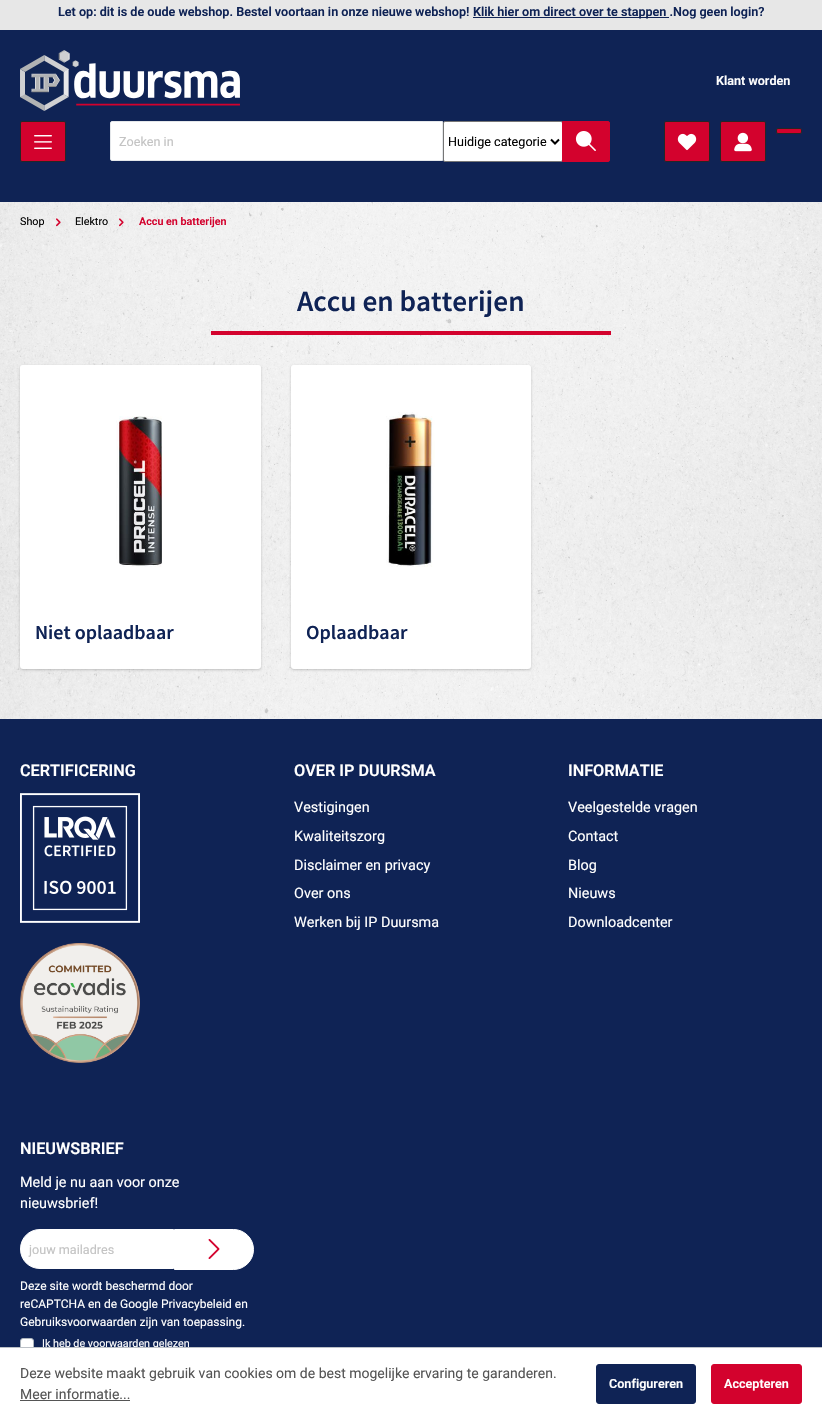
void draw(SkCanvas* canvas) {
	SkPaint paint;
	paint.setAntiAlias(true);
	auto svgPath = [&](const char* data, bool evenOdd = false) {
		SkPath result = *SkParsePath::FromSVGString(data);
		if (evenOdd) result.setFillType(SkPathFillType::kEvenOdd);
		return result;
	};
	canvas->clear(0xffffffff);
	canvas->drawImageRect(SkImages::DeferredFromEncodedData(SkData::MakeFromFileName("img1.png")), SkRect::MakeXYWH(0, 202, 822, 517), SkSamplingOptions());
	paint.setColor(0xffe7e7e7);
	canvas->drawRect(SkRect::MakeXYWH(0, 0, 822, 30), paint);
	SkFont f1(fontMgr->matchFamilyStyle("Roboto", SkFontStyle(600, SkFontStyle::kNormal_Width, SkFontStyle::kUpright_Slant)), 12.6);
	f1.setSubpixel(true);
	paint.setColor(0xff0f2355);
	canvas->drawString("Let op: dit is de oude webshop. Bestel voortaan in onze nieuwe webshop!", 58, 16, f1, paint);
	canvas->drawRect(SkRect::MakeXYWH(473, 17, 196, 1), paint);
	canvas->drawString("Klik hier om direct over te stappen .Nog geen login?", 473, 16, f1, paint);
	canvas->drawRect(SkRect::MakeXYWH(0, 30, 822, 172), paint);
	canvas->drawImageRect(SkImages::DeferredFromEncodedData(SkData::MakeFromFileName("img2.png")), SkRect::MakeXYWH(20, 50, 220, 61), SkSamplingOptions());
	paint.setColor(0xffffffff);
	canvas->drawString("Klant worden", 716, 85, f1, paint);
	paint.setColor(0xffd3022d);
	canvas->drawRoundRect(SkRect::MakeXYWH(20.5, 121.5, 45, 40), 1.5, 1.5, paint);
	paint.setStroke(true);
	paint.setStrokeWidth(1);
	paint.setColor(0xff262626);
	canvas->drawRoundRect(SkRect::MakeXYWH(20.5, 121.5, 45, 40), 1.5, 1.5, paint);
	canvas->drawImageRect(SkImages::DeferredFromEncodedData(SkData::MakeFromFileName("img3.png")), SkRect::MakeXYWH(34, 135, 18, 14), SkSamplingOptions());
	paint.setStroke(false);
	paint.setColor(0xffffffff);
	canvas->drawPath(svgPath("M112 121.5H442.5V160.5H112C111 160.5 110.5 160 110.5 159V123C110.5 122 111 121.5 112 121.5Z"), paint);
	paint.setStroke(true);
	paint.setColor(0xffe4e7ea);
	canvas->drawPath(svgPath("M112 121.5H442.5V160.5H112C111 160.5 110.5 160 110.5 159V123C110.5 122 111 121.5 112 121.5Z"), paint);
	SkFont f2(fontMgr->matchFamilyStyle("Roboto", SkFontStyle::Normal()), 12.6);
	f2.setSubpixel(true);
	paint.setStroke(false);
	paint.setColor(0xffc3c3c3);
	canvas->drawString("Zoeken in", 119, 146, f2, paint);
	paint.setColor(0xffffffff);
	canvas->drawRoundRect(SkRect::MakeXYWH(443.5, 121.5, 119, 40), 1.5, 1.5, paint);
	paint.setStroke(true);
	paint.setColor(0xff767676);
	canvas->drawRoundRect(SkRect::MakeXYWH(443.5, 121.5, 119, 40), 1.5, 1.5, paint);
	paint.setStrokeWidth(2);
	paint.setColor(0xff000000);
	canvas->drawPath(svgPath("M551 139.5L555 143.5L559 139.5"), paint);
	paint.setStroke(false);
	canvas->drawString("Huidige categorie", 448, 146, f2, paint);
	paint.setColor(0xffd3022d);
	canvas->drawPath(svgPath("M562.5 121.5H608C609 121.5 609.5 122 609.5 123V160C609.5 161 609 161.5 608 161.5H562.5Z"), paint);
	paint.setStroke(true);
	paint.setStrokeWidth(1);
	canvas->drawPath(svgPath("M562.5 121.5H608C609 121.5 609.5 122 609.5 123V160C609.5 161 609 161.5 608 161.5H562.5Z"), paint);
	canvas->drawImageRect(SkImages::DeferredFromEncodedData(SkData::MakeFromFileName("img4.png")), SkRect::MakeXYWH(575, 131, 21, 20), SkSamplingOptions());
	paint.setStroke(false);
	canvas->drawRoundRect(SkRect::MakeXYWH(664.5, 121.5, 45, 40), 1.5, 1.5, paint);
	paint.setStroke(true);
	paint.setColor(0xff262626);
	canvas->drawRoundRect(SkRect::MakeXYWH(664.5, 121.5, 45, 40), 1.5, 1.5, paint);
	canvas->drawImageRect(SkImages::DeferredFromEncodedData(SkData::MakeFromFileName("img5.png")), SkRect::MakeXYWH(677, 133, 20, 18), SkSamplingOptions());
	paint.setStroke(false);
	paint.setColor(0xffd3022d);
	canvas->drawRoundRect(SkRect::MakeXYWH(720.5, 121.5, 45, 40), 1.5, 1.5, paint);
	paint.setStroke(true);
	paint.setColor(0xff262626);
	canvas->drawRoundRect(SkRect::MakeXYWH(720.5, 121.5, 45, 40), 1.5, 1.5, paint);
	canvas->drawImageRect(SkImages::DeferredFromEncodedData(SkData::MakeFromFileName("img6.png")), SkRect::MakeXYWH(734, 132, 18, 20), SkSamplingOptions());
	paint.setStroke(false);
	paint.setColor(0xffd3022d);
	canvas->drawRoundRect(SkRect::MakeXYWH(776.5, 128.5, 25, 5), 1.5, 1.5, paint);
	paint.setStroke(true);
	paint.setColor(0xff262626);
	canvas->drawRoundRect(SkRect::MakeXYWH(776.5, 128.5, 25, 5), 1.5, 1.5, paint);
	SkFont f3(fontMgr->matchFamilyStyle("Roboto", SkFontStyle::Normal()), 10.75);
	f3.setSubpixel(true);
	paint.setStroke(false);
	paint.setColor(0xff000000);
	canvas->drawString("Shop", 20, 225, f3, paint);
	canvas->drawImageRect(SkImages::DeferredFromEncodedData(SkData::MakeFromFileName("img7.png")), SkRect::MakeXYWH(56, 218, 5, 9), SkSamplingOptions());
	canvas->drawString("Elektro", 75, 225, f3, paint);
	canvas->drawImageRect(SkImages::DeferredFromEncodedData(SkData::MakeFromFileName("img8.png")), SkRect::MakeXYWH(119, 218, 5, 9), SkSamplingOptions());
	SkFont f4(fontMgr->matchFamilyStyle("Roboto", SkFontStyle(600, SkFontStyle::kNormal_Width, SkFontStyle::kUpright_Slant)), 10.75);
	f4.setSubpixel(true);
	paint.setColor(0xffd3022d);
	canvas->drawString("Accu en batterijen", 139, 225, f4, paint);
	SkFont f5(fontMgr->matchFamilyStyle("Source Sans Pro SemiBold", SkFontStyle(600, SkFontStyle::kNormal_Width, SkFontStyle::kUpright_Slant)), 29.25);
	f5.setSubpixel(true);
	paint.setColor(0xff0f2355);
	canvas->drawString("Accu en batterijen", 297, 311, f5, paint);
	paint.setColor(0xffd3022d);
	canvas->drawRect(SkRect::MakeXYWH(211, 331, 400, 4), paint);
	paint.setColor(0x1a000000);
	paint.setMaskFilter(SkMaskFilter::MakeBlur(kNormal_SkBlurStyle, 1));
	canvas->drawRoundRect(SkRect::MakeXYWH(20, 366, 241, 304), 3, 3, paint);
	paint.setMaskFilter(nullptr);
	paint.setMaskFilter(SkMaskFilter::MakeBlur(kNormal_SkBlurStyle, 1.5));
	canvas->drawRoundRect(SkRect::MakeXYWH(20, 366, 241, 304), 3, 3, paint);
	paint.setMaskFilter(nullptr);
	paint.setColor(0xffffffff);
	canvas->drawRoundRect(SkRect::MakeXYWH(20, 365, 241, 304), 3, 3, paint);
	canvas->drawPath(svgPath("M23 365H258C259.5 365 261 366.5 261 368V615H20V368C20 366.5 21.5 365 23 365Z"), paint);
	canvas->drawImageRect(SkImages::DeferredFromEncodedData(SkData::MakeFromFileName("img9.png")), SkRect::MakeXYWH(116, 416, 46, 151), SkSamplingOptions());
	SkFont f6(fontMgr->matchFamilyStyle("Source Sans Pro SemiBold", SkFontStyle(600, SkFontStyle::kNormal_Width, SkFontStyle::kUpright_Slant)), 20);
	f6.setSubpixel(true);
	paint.setColor(0xff0f2355);
	canvas->drawString("Niet oplaadbaar", 35, 639, f6, paint);
	paint.setColor(0x1a000000);
	paint.setMaskFilter(SkMaskFilter::MakeBlur(kNormal_SkBlurStyle, 1));
	canvas->drawRoundRect(SkRect::MakeXYWH(291, 366, 240, 304), 3, 3, paint);
	paint.setMaskFilter(nullptr);
	paint.setMaskFilter(SkMaskFilter::MakeBlur(kNormal_SkBlurStyle, 1.5));
	canvas->drawRoundRect(SkRect::MakeXYWH(291, 366, 240, 304), 3, 3, paint);
	paint.setMaskFilter(nullptr);
	paint.setColor(0xffffffff);
	canvas->drawRoundRect(SkRect::MakeXYWH(291, 365, 240, 304), 3, 3, paint);
	canvas->drawPath(svgPath("M294 365H528C529.5 365 531 366.5 531 368V615H291V368C291 366.5 292.5 365 294 365Z"), paint);
	canvas->drawImageRect(SkImages::DeferredFromEncodedData(SkData::MakeFromFileName("img10.png")), SkRect::MakeXYWH(386, 412, 49, 155), SkSamplingOptions());
	paint.setColor(0xff0f2355);
	canvas->drawString("Oplaadbaar", 306, 639, f6, paint);
	canvas->drawRect(SkRect::MakeXYWH(0, 719, 822, 628), paint);
	SkFont f7(fontMgr->matchFamilyStyle("Roboto", SkFontStyle(600, SkFontStyle::kNormal_Width, SkFontStyle::kUpright_Slant)), 16.25);
	f7.setSubpixel(true);
	paint.setColor(0xffffffff);
	canvas->drawString("CERTIFICERING", 20, 776, f7, paint);
	canvas->drawImageRect(SkImages::DeferredFromEncodedData(SkData::MakeFromFileName("img11.png")), SkRect::MakeXYWH(20, 793, 120, 130), SkSamplingOptions());
	canvas->drawImageRect(SkImages::DeferredFromEncodedData(SkData::MakeFromFileName("img12.png")), SkRect::MakeXYWH(20, 943, 120, 120), SkSamplingOptions());
	canvas->drawString("OVER IP DUURSMA", 294, 776, f7, paint);
	SkFont f8(fontMgr->matchFamilyStyle("Roboto", SkFontStyle::Normal()), 14.4);
	f8.setSubpixel(true);
	canvas->drawString("Vestigingen", 294, 812, f8, paint);
	canvas->drawString("Kwaliteitszorg", 294, 841, f8, paint);
	canvas->drawString("Disclaimer en privacy", 294, 870, f8, paint);
	canvas->drawString("Over ons", 294, 898, f8, paint);
	canvas->drawString("Werken bij IP Duursma", 294, 927, f8, paint);
	canvas->drawString("INFORMATIE", 568, 776, f7, paint);
	canvas->drawString("Veelgestelde vragen", 568, 812, f8, paint);
	canvas->drawString("Contact", 568, 841, f8, paint);
	canvas->drawString("Blog", 568, 870, f8, paint);
	canvas->drawString("Nieuws", 568, 898, f8, paint);
	canvas->drawString("Downloadcenter", 568, 927, f8, paint);
	canvas->drawString("NIEUWSBRIEF", 20, 1154, f7, paint);
	canvas->drawString("Meld je nu aan voor onze", 20, 1187, f8, paint);
	canvas->drawString("nieuwsbrief!", 20, 1208, f8, paint);
	canvas->drawPath(svgPath("M40 1229.5H173.5V1268.5H40C29 1268.5 20.5 1260 20.5 1249C20.5 1238 29 1229.5 40 1229.5Z"), paint);
	paint.setStroke(true);
	canvas->drawPath(svgPath("M40 1229.5H173.5V1268.5H40C29 1268.5 20.5 1260 20.5 1249C20.5 1238 29 1229.5 40 1229.5Z"), paint);
	paint.setStroke(false);
	paint.setColor(0xffc3c3c3);
	canvas->drawString("jouw mailadres", 29, 1254, f2, paint);
	paint.setColor(0xffffffff);
	canvas->drawPath(svgPath("M174.5 1229.5H233.5C244.5 1229.5 253.5 1238.5 253.5 1249.5C253.5 1260.5 244.5 1269.5 233.5 1269.5H174.5Z"), paint);
	paint.setStroke(true);
	canvas->drawPath(svgPath("M174.5 1229.5H233.5C244.5 1229.5 253.5 1238.5 253.5 1249.5C253.5 1260.5 244.5 1269.5 233.5 1269.5H174.5Z"), paint);
	canvas->drawImageRect(SkImages::DeferredFromEncodedData(SkData::MakeFromFileName("img13.png")), SkRect::MakeXYWH(208, 1239, 12, 20), SkSamplingOptions());
	SkFont f9(fontMgr->matchFamilyStyle("Roboto", SkFontStyle::Normal()), 12);
	f9.setSubpixel(true);
	paint.setStroke(false);
	canvas->drawString("Deze site wordt beschermd door", 20, 1290, f9, paint);
	canvas->drawString("reCAPTCHA en de Google Privacybeleid en", 20, 1308, f9, paint);
	canvas->drawString("Gebruiksvoorwaarden zijn van toepassing.", 20, 1326, f9, paint);
	canvas->drawRoundRect(SkRect::MakeXYWH(20.5, 1338.5, 13, 13), 2.5, 2.5, paint);
	paint.setStroke(true);
	paint.setColor(0xffadb5bd);
	canvas->drawRoundRect(SkRect::MakeXYWH(20.5, 1338.5, 13, 13), 2.5, 2.5, paint);
	paint.setStroke(false);
	paint.setColor(0xffffffff);
	canvas->drawString("Ik heb de voorwaarden gelezen", 42, 1347, f3, paint);
	canvas->drawRect(SkRect::MakeXYWH(20, 1348, 14, 4), paint);
	paint.setColor(0xffbcc1c7);
	canvas->drawRect(SkRect::MakeXYWH(0, 1347, 822, 1), paint);
	SkFont f10(fontMgr->matchFamilyStyle("Roboto", SkFontStyle::Normal()), 14);
	f10.setSubpixel(true);
	paint.setColor(0xff555555);
	canvas->drawString("Deze website maakt gebruik van cookies om de best mogelijke ervaring te garanderen.", 20, 1378, f10, paint);
	canvas->drawString("Meer informatie...", 20, 1399, f10, paint);
	canvas->drawRect(SkRect::MakeXYWH(20, 1400, 110, 1), paint);
	paint.setColor(0xff0f2355);
	canvas->drawRoundRect(SkRect::MakeXYWH(596.5, 1364.5, 99, 39), 2.5, 2.5, paint);
	paint.setStroke(true);
	canvas->drawRoundRect(SkRect::MakeXYWH(596.5, 1364.5, 99, 39), 2.5, 2.5, paint);
	paint.setStroke(false);
	paint.setColor(0xffffffff);
	canvas->drawString("Configureren", 609, 1388, f1, paint);
	paint.setColor(0xffd3022d);
	canvas->drawRoundRect(SkRect::MakeXYWH(711.5, 1364.5, 90, 39), 2.5, 2.5, paint);
	paint.setStroke(true);
	canvas->drawRoundRect(SkRect::MakeXYWH(711.5, 1364.5, 90, 39), 2.5, 2.5, paint);
	paint.setStroke(false);
	paint.setColor(0xffffffff);
	canvas->drawString("Accepteren", 724, 1388, f1, paint);
}
